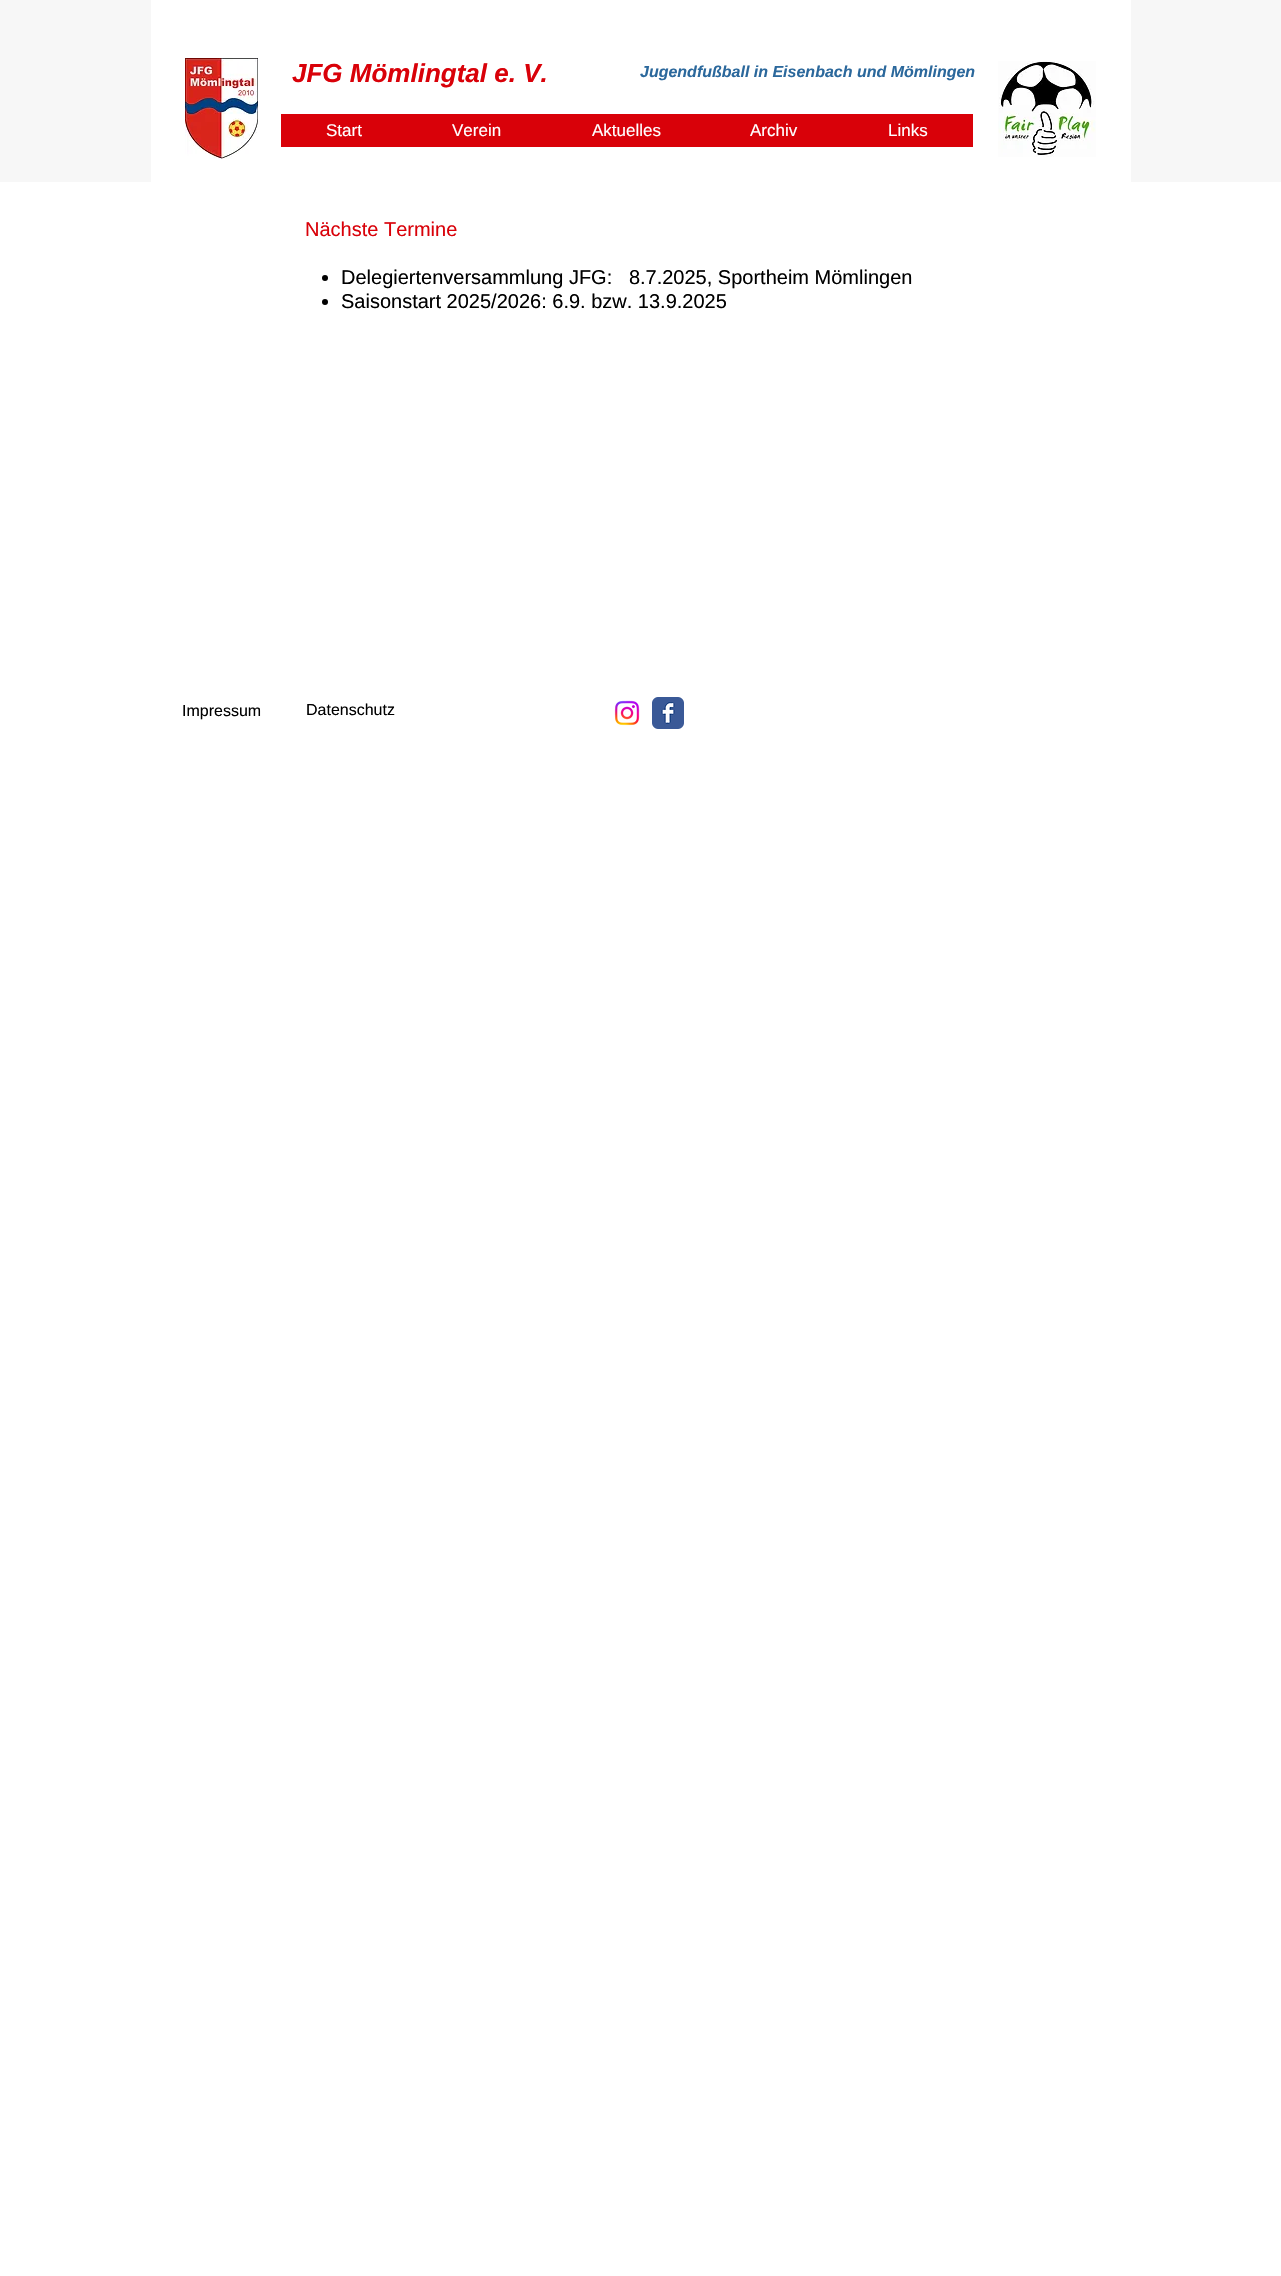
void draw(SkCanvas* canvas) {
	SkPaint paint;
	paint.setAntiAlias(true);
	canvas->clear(0xffffffff);
	paint.setColor(0xfff7f7f7);
	canvas->drawRect(SkRect::MakeXYWH(0, 0, 1281, 182), paint);
	paint.setColor(0xffffffff);
	canvas->drawRect(SkRect::MakeXYWH(151, 0, 980, 182), paint);
	canvas->drawImageRect(SkImages::DeferredFromEncodedData(SkData::MakeFromFileName("img1.png")), SkRect::MakeXYWH(185, 58, 73, 101), SkSamplingOptions());
	SkFont f1(fontMgr->matchFamilyStyle("Liberation Sans", SkFontStyle::BoldItalic()), 26);
	f1.setSubpixel(true);
	paint.setColor(0xffd90109);
	canvas->drawString("JFG Mömlingtal e. V.", 292, 82, f1, paint);
	SkFont f2(fontMgr->matchFamilyStyle("Liberation Sans", SkFontStyle::BoldItalic()), 16);
	f2.setSubpixel(true);
	paint.setColor(0xff2b689c);
	canvas->drawString("Jugendfußball in Eisenbach und Mömlingen", 640, 77, f2, paint);
	canvas->drawImageRect(SkImages::DeferredFromEncodedData(SkData::MakeFromFileName("img2.png")), SkRect::MakeXYWH(998, 61, 98, 96), SkSamplingOptions());
	paint.setColor(0xffd90109);
	canvas->drawRect(SkRect::MakeXYWH(281, 114, 692, 33), paint);
	SkFont f3(fontMgr->matchFamilyStyle("Liberation Sans", SkFontStyle::Normal()), 17);
	f3.setSubpixel(true);
	paint.setColor(0xffffffff);
	canvas->drawString("Start", 326, 136, f3, paint);
	canvas->drawString("Verein", 452, 136, f3, paint);
	canvas->drawString("Aktuelles", 592, 136, f3, paint);
	canvas->drawString("Archiv", 750, 136, f3, paint);
	canvas->drawString("Links", 888, 136, f3, paint);
	SkFont f4(fontMgr->matchFamilyStyle("Liberation Sans", SkFontStyle::Normal()), 20);
	f4.setSubpixel(true);
	paint.setColor(0xffd90109);
	canvas->drawString("Nächste Termine", 305, 236, f4, paint);
	paint.setColor(0xff000000);
	canvas->drawCircle(325, 278, 3, paint);
	canvas->drawString("Delegiertenversammlung JFG:   8.7.2025, Sportheim Mömlingen", 341, 284, f4, paint);
	canvas->drawCircle(325, 302, 3, paint);
	canvas->drawString("Saisonstart 2025/2026: 6.9. bzw. 13.9.2025", 341, 308, f4, paint);
	SkFont f5(fontMgr->matchFamilyStyle("Liberation Sans", SkFontStyle::Normal()), 16);
	f5.setSubpixel(true);
	canvas->drawString("Impressum", 182, 716, f5, paint);
	canvas->drawString("Datenschutz", 306, 715, f5, paint);
	canvas->drawImageRect(SkImages::DeferredFromEncodedData(SkData::MakeFromFileName("img3.png")), SkRect::MakeXYWH(614, 700, 26, 26), SkSamplingOptions());
	canvas->drawImageRect(SkImages::DeferredFromEncodedData(SkData::MakeFromFileName("img4.png")), SkRect::MakeXYWH(652, 697, 32, 32), SkSamplingOptions());
}
